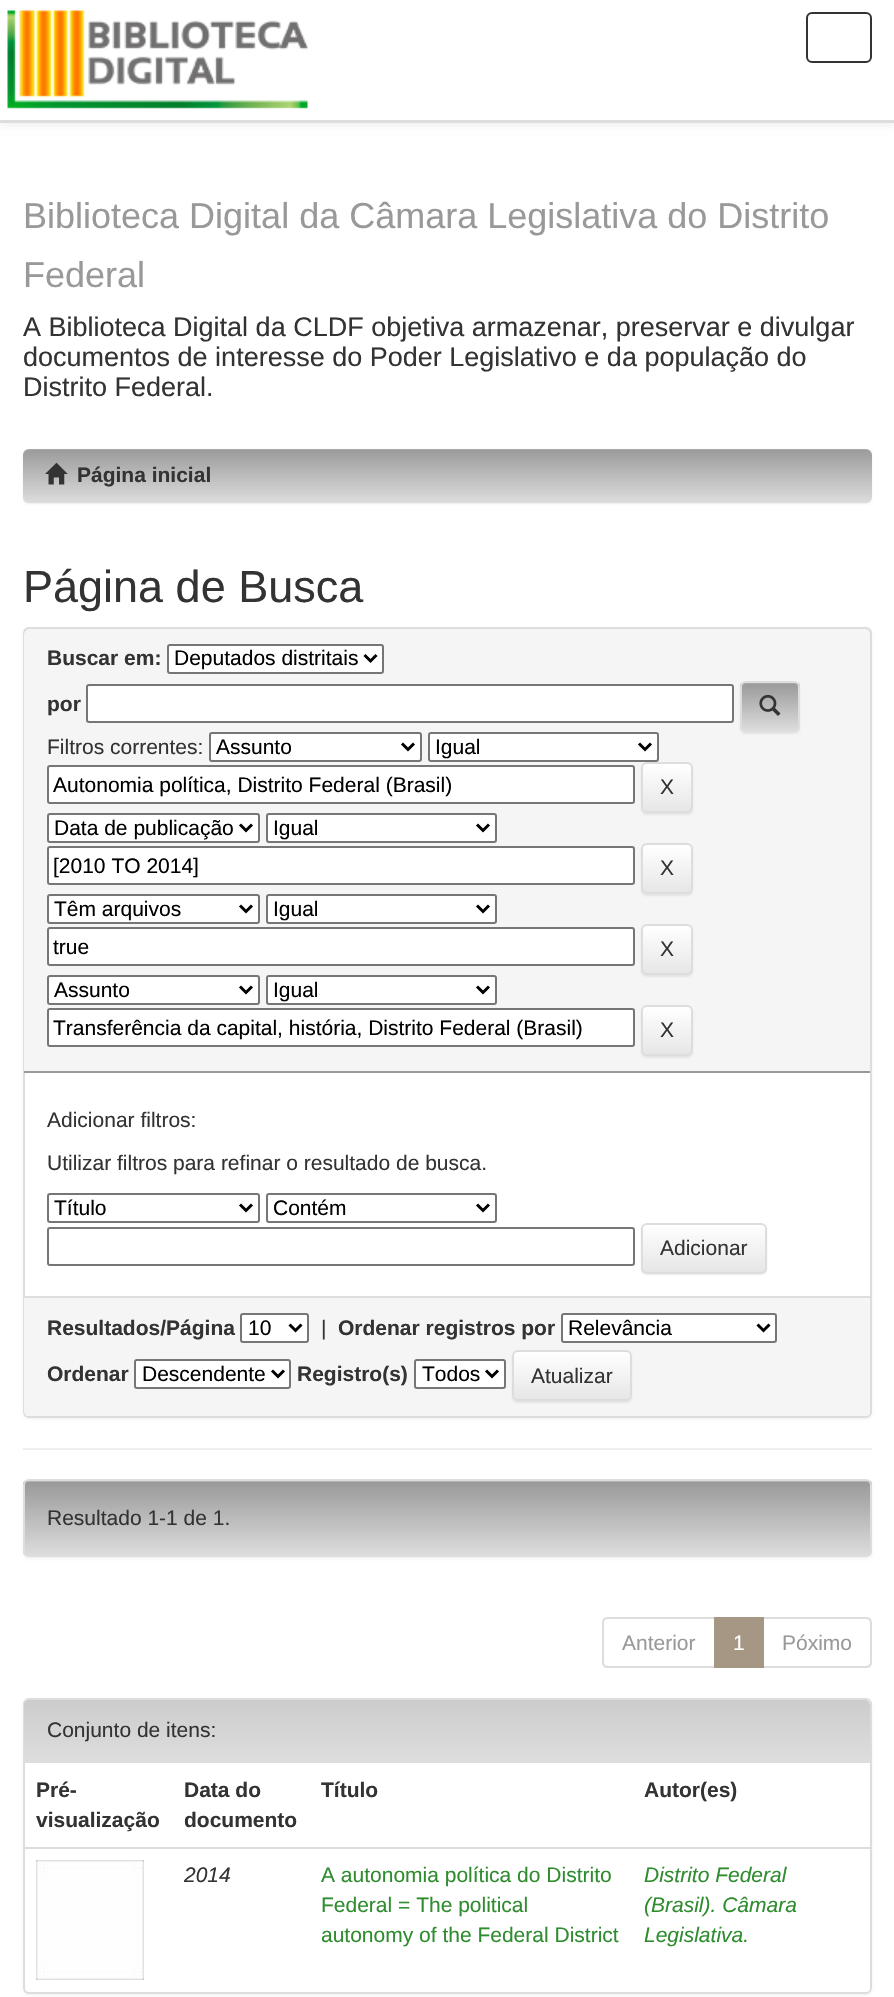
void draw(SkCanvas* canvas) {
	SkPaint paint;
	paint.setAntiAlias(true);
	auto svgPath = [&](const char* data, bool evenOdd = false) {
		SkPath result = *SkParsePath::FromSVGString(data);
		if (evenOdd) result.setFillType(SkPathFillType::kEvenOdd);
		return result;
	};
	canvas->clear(0xffffffff);
	paint.setColor(0x12000000);
	paint.setMaskFilter(SkMaskFilter::MakeBlur(kNormal_SkBlurStyle, 4));
	canvas->drawRect(SkRect::MakeXYWH(0, 2, 894, 123), paint);
	paint.setMaskFilter(nullptr);
	paint.setColor(0xffffffff);
	canvas->drawRect(SkRect::MakeXYWH(0, 0, 894, 120), paint);
	paint.setColor(0xffdddddd);
	canvas->drawRect(SkRect::MakeXYWH(0, 120, 894, 3), paint);
	canvas->drawImageRect(SkImages::DeferredFromEncodedData(SkData::MakeFromFileName("img1.png")), SkRect::MakeXYWH(7, 10, 301, 99), SkSamplingOptions());
	paint.setStroke(true);
	paint.setStrokeWidth(2);
	paint.setColor(0xff333333);
	canvas->drawRoundRect(SkRect::MakeXYWH(807, 13, 64, 49), 5, 5, paint);
	SkFont f1(fontMgr->matchFamilyStyle("Liberation Sans", SkFontStyle::Normal()), 36);
	f1.setSubpixel(true);
	paint.setStroke(false);
	paint.setColor(0xff999999);
	canvas->drawString("Biblioteca Digital da Câmara Legislativa do Distrito", 23, 228, f1, paint);
	canvas->drawString("Federal", 23, 287, f1, paint);
	SkFont f2(fontMgr->matchFamilyStyle("Liberation Sans", SkFontStyle::Normal()), 27);
	f2.setSubpixel(true);
	paint.setColor(0xff333333);
	canvas->drawString("A Biblioteca Digital da CLDF objetiva armazenar, preservar e divulgar", 23, 336, f2, paint);
	canvas->drawString("documentos de interesse do Poder Legislativo e da população do", 23, 366, f2, paint);
	canvas->drawString("Distrito Federal.", 23, 396, f2, paint);
	paint.setColor(0x12000000);
	paint.setMaskFilter(SkMaskFilter::MakeBlur(kNormal_SkBlurStyle, 1));
	canvas->drawRoundRect(SkRect::MakeXYWH(23, 450, 849, 54), 6, 6, paint);
	paint.setMaskFilter(nullptr);
	{
		const SkColor colors[] = {0xff999999, 0xffdddddd};
		const float stops[] = {0, 1};
		const SkPoint ends[] = {{447, 448}, {447, 503}};
		paint.setShader(SkGradientShader::MakeLinear(ends, colors, stops, 2, SkTileMode::kClamp));
		paint.setAlpha(255);
	}
	canvas->drawRoundRect(SkRect::MakeXYWH(23, 449, 849, 54), 6, 6, paint);
	paint.setShader(nullptr);
	paint.setColor(0x26ffffff);
	canvas->drawPath(svgPath("M28 450H866C869 450 872 453 872 456V455C872 452 869 449 866 449H29C27 449 25 450 24 452C25 451 27 450 28 450Z"), paint);
	canvas->drawImageRect(SkImages::DeferredFromEncodedData(SkData::MakeFromFileName("img2.png")), SkRect::MakeXYWH(45, 462, 23, 23), SkSamplingOptions());
	SkFont f3(fontMgr->matchFamilyStyle("Liberation Sans", SkFontStyle::Bold()), 21);
	f3.setSubpixel(true);
	paint.setColor(0xff333333);
	canvas->drawString("Página inicial", 77, 482, f3, paint);
	SkFont f4(fontMgr->matchFamilyStyle("Liberation Sans", SkFontStyle::Normal()), 45);
	f4.setSubpixel(true);
	canvas->drawString("Página de Busca", 23, 602, f4, paint);
	paint.setColor(0x0d000000);
	paint.setMaskFilter(SkMaskFilter::MakeBlur(kNormal_SkBlurStyle, 1.5));
	canvas->drawRoundRect(SkRect::MakeXYWH(23, 629, 849, 790), 6, 6, paint);
	paint.setMaskFilter(nullptr);
	paint.setColor(0xffffffff);
	canvas->drawRoundRect(SkRect::MakeXYWH(24, 628, 847, 789), 5, 5, paint);
	paint.setStroke(true);
	paint.setColor(0xffdddddd);
	canvas->drawRoundRect(SkRect::MakeXYWH(24, 628, 847, 789), 5, 5, paint);
	paint.setStroke(false);
	paint.setColor(0xff999999);
	canvas->drawPath(svgPath("M29 629H865C868 629 870 631 870 634V1073H24V634C24 631 26 629 29 629Z"), paint);
	paint.setColor(0xfff5f5f5);
	canvas->drawPath(svgPath("M29 629H865C868 629 870 631 870 634V1071H24V634C24 631 26 629 29 629Z"), paint);
	paint.setColor(0xff333333);
	canvas->drawString("Buscar em:", 47, 665, f3, paint);
	paint.setColor(0xffffffff);
	canvas->drawRoundRect(SkRect::MakeXYWH(168, 645, 215, 28), 2, 2, paint);
	paint.setStroke(true);
	paint.setColor(0xff767676);
	canvas->drawRoundRect(SkRect::MakeXYWH(168, 645, 215, 28), 2, 2, paint);
	paint.setStrokeWidth(3);
	paint.setColor(0xff000000);
	canvas->drawPath(svgPath("M364.5 655L370.5 661L376.5 655"), paint);
	SkFont f5(fontMgr->matchFamilyStyle("Liberation Sans", SkFontStyle::Normal()), 21);
	f5.setSubpixel(true);
	paint.setStroke(false);
	canvas->drawString("Deputados distritais", 174, 665, f5, paint);
	paint.setColor(0xff333333);
	canvas->drawString("por", 47, 711, f3, paint);
	paint.setColor(0xffffffff);
	canvas->drawRoundRect(SkRect::MakeXYWH(87, 685, 646, 37), 2, 2, paint);
	paint.setStroke(true);
	paint.setStrokeWidth(2);
	paint.setColor(0xff767676);
	canvas->drawRoundRect(SkRect::MakeXYWH(87, 685, 646, 37), 2, 2, paint);
	paint.setStroke(false);
	paint.setColor(0x12000000);
	paint.setMaskFilter(SkMaskFilter::MakeBlur(kNormal_SkBlurStyle, 1));
	canvas->drawRoundRect(SkRect::MakeXYWH(740, 683, 60, 51), 6, 6, paint);
	paint.setMaskFilter(nullptr);
	canvas->save();
	canvas->clipPath(svgPath("M746 681H794C797.5 681 800 683.5 800 687V726C800 729.5 797.5 732 794 732H746C742.5 732 740 729.5 740 726V687C740 683.5 742.5 681 746 681Z"), true);
	{
		const SkColor colors[] = {0xff999999, 0xffdddddd};
		const float stops[] = {0, 1};
		const SkPoint ends[] = {{770, 683}, {770, 731}};
		paint.setShader(SkGradientShader::MakeLinear(ends, colors, stops, 2, SkTileMode::kClamp));
		paint.setAlpha(255);
	}
	canvas->drawRect(SkRect::MakeXYWH(740, 683, 60, 48), paint);
	canvas->restore();
	paint.setShader(nullptr);
	paint.setColor(0xffa9a9a9);
	canvas->drawPath(svgPath("M746 684H794C796 684 798 686 798 688C798 685 796 683 793 683H746C743 683 741 685 741 688C741 686 743 684 746 684Z"), paint);
	paint.setStroke(true);
	paint.setColor(0xffdddddd);
	canvas->drawRoundRect(SkRect::MakeXYWH(741, 682, 58, 49), 5, 5, paint);
	canvas->drawImageRect(SkImages::DeferredFromEncodedData(SkData::MakeFromFileName("img3.png")), SkRect::MakeXYWH(759, 694, 22, 22), SkSamplingOptions());
	paint.setStroke(false);
	paint.setColor(0xff333333);
	canvas->drawString("Filtros correntes:", 47, 754, f5, paint);
	paint.setColor(0xffffffff);
	canvas->drawRoundRect(SkRect::MakeXYWH(210, 733, 211, 28), 2, 2, paint);
	paint.setStroke(true);
	paint.setColor(0xff767676);
	canvas->drawRoundRect(SkRect::MakeXYWH(210, 733, 211, 28), 2, 2, paint);
	paint.setStrokeWidth(3);
	paint.setColor(0xff000000);
	canvas->drawPath(svgPath("M402 743.5L408 749.5L414 743.5"), paint);
	paint.setStroke(false);
	canvas->drawString("Assunto", 216, 754, f5, paint);
	paint.setColor(0xffffffff);
	canvas->drawRoundRect(SkRect::MakeXYWH(429, 733, 229, 28), 2, 2, paint);
	paint.setStroke(true);
	paint.setStrokeWidth(2);
	paint.setColor(0xff767676);
	canvas->drawRoundRect(SkRect::MakeXYWH(429, 733, 229, 28), 2, 2, paint);
	paint.setStrokeWidth(3);
	paint.setColor(0xff000000);
	canvas->drawPath(svgPath("M639 743.5L645 749.5L651 743.5"), paint);
	paint.setStroke(false);
	canvas->drawString("Igual", 435, 754, f5, paint);
	paint.setColor(0xffffffff);
	canvas->drawRoundRect(SkRect::MakeXYWH(48, 766, 586, 37), 2, 2, paint);
	paint.setStroke(true);
	paint.setStrokeWidth(2);
	paint.setColor(0xff767676);
	canvas->drawRoundRect(SkRect::MakeXYWH(48, 766, 586, 37), 2, 2, paint);
	paint.setStroke(false);
	paint.setColor(0xff000000);
	canvas->drawString("Autonomia política, Distrito Federal (Brasil)", 53, 792, f5, paint);
	paint.setColor(0x12000000);
	paint.setMaskFilter(SkMaskFilter::MakeBlur(kNormal_SkBlurStyle, 1));
	canvas->drawRoundRect(SkRect::MakeXYWH(641, 764, 52, 51), 6, 6, paint);
	paint.setMaskFilter(nullptr);
	canvas->save();
	canvas->clipPath(svgPath("M647 762H687C690.5 762 693 764.5 693 768V807C693 810.5 690.5 813 687 813H647C643.5 813 641 810.5 641 807V768C641 764.5 643.5 762 647 762Z"), true);
	{
		const SkColor colors[] = {0xffffffff, 0xffe6e6e6};
		const float stops[] = {0, 1};
		const SkPoint ends[] = {{667, 764}, {667, 812}};
		paint.setShader(SkGradientShader::MakeLinear(ends, colors, stops, 2, SkTileMode::kClamp));
		paint.setAlpha(255);
	}
	canvas->drawRect(SkRect::MakeXYWH(641, 764, 52, 48), paint);
	canvas->restore();
	paint.setStroke(true);
	paint.setShader(nullptr);
	paint.setColor(0xffdddddd);
	canvas->drawRoundRect(SkRect::MakeXYWH(642, 763, 50, 49), 5, 5, paint);
	paint.setStroke(false);
	paint.setColor(0xff333333);
	canvas->drawString("X", 660, 794, f5, paint);
	paint.setColor(0xffffffff);
	canvas->drawRoundRect(SkRect::MakeXYWH(48, 814, 211, 28), 2, 2, paint);
	paint.setStroke(true);
	paint.setColor(0xff767676);
	canvas->drawRoundRect(SkRect::MakeXYWH(48, 814, 211, 28), 2, 2, paint);
	paint.setStrokeWidth(3);
	paint.setColor(0xff000000);
	canvas->drawPath(svgPath("M240 824.5L246 830.5L252 824.5"), paint);
	paint.setStroke(false);
	canvas->drawString("Data de publicação", 54, 835, f5, paint);
	paint.setColor(0xffffffff);
	canvas->drawRoundRect(SkRect::MakeXYWH(267, 814, 229, 28), 2, 2, paint);
	paint.setStroke(true);
	paint.setStrokeWidth(2);
	paint.setColor(0xff767676);
	canvas->drawRoundRect(SkRect::MakeXYWH(267, 814, 229, 28), 2, 2, paint);
	paint.setStrokeWidth(3);
	paint.setColor(0xff000000);
	canvas->drawPath(svgPath("M477 824.5L483 830.5L489 824.5"), paint);
	paint.setStroke(false);
	canvas->drawString("Igual", 273, 835, f5, paint);
	paint.setColor(0xffffffff);
	canvas->drawRoundRect(SkRect::MakeXYWH(48, 847, 586, 37), 2, 2, paint);
	paint.setStroke(true);
	paint.setStrokeWidth(2);
	paint.setColor(0xff767676);
	canvas->drawRoundRect(SkRect::MakeXYWH(48, 847, 586, 37), 2, 2, paint);
	paint.setStroke(false);
	paint.setColor(0xff000000);
	canvas->drawString("[2010 TO 2014]", 53, 873, f5, paint);
	paint.setColor(0x12000000);
	paint.setMaskFilter(SkMaskFilter::MakeBlur(kNormal_SkBlurStyle, 1));
	canvas->drawRoundRect(SkRect::MakeXYWH(641, 845, 52, 51), 6, 6, paint);
	paint.setMaskFilter(nullptr);
	canvas->save();
	canvas->clipPath(svgPath("M647 843H687C690.5 843 693 845.5 693 849V888C693 891.5 690.5 894 687 894H647C643.5 894 641 891.5 641 888V849C641 845.5 643.5 843 647 843Z"), true);
	{
		const SkColor colors[] = {0xffffffff, 0xffe6e6e6};
		const float stops[] = {0, 1};
		const SkPoint ends[] = {{667, 845}, {667, 893}};
		paint.setShader(SkGradientShader::MakeLinear(ends, colors, stops, 2, SkTileMode::kClamp));
		paint.setAlpha(255);
	}
	canvas->drawRect(SkRect::MakeXYWH(641, 845, 52, 48), paint);
	canvas->restore();
	paint.setStroke(true);
	paint.setShader(nullptr);
	paint.setColor(0xffdddddd);
	canvas->drawRoundRect(SkRect::MakeXYWH(642, 844, 50, 49), 5, 5, paint);
	paint.setStroke(false);
	paint.setColor(0xff333333);
	canvas->drawString("X", 660, 875, f5, paint);
	paint.setColor(0xffffffff);
	canvas->drawRoundRect(SkRect::MakeXYWH(48, 895, 211, 28), 2, 2, paint);
	paint.setStroke(true);
	paint.setColor(0xff767676);
	canvas->drawRoundRect(SkRect::MakeXYWH(48, 895, 211, 28), 2, 2, paint);
	paint.setStrokeWidth(3);
	paint.setColor(0xff000000);
	canvas->drawPath(svgPath("M240 905.5L246 911.5L252 905.5"), paint);
	paint.setStroke(false);
	canvas->drawString("Têm arquivos", 54, 916, f5, paint);
	paint.setColor(0xffffffff);
	canvas->drawRoundRect(SkRect::MakeXYWH(267, 895, 229, 28), 2, 2, paint);
	paint.setStroke(true);
	paint.setStrokeWidth(2);
	paint.setColor(0xff767676);
	canvas->drawRoundRect(SkRect::MakeXYWH(267, 895, 229, 28), 2, 2, paint);
	paint.setStrokeWidth(3);
	paint.setColor(0xff000000);
	canvas->drawPath(svgPath("M477 905.5L483 911.5L489 905.5"), paint);
	paint.setStroke(false);
	canvas->drawString("Igual", 273, 916, f5, paint);
	paint.setColor(0xffffffff);
	canvas->drawRoundRect(SkRect::MakeXYWH(48, 928, 586, 37), 2, 2, paint);
	paint.setStroke(true);
	paint.setStrokeWidth(2);
	paint.setColor(0xff767676);
	canvas->drawRoundRect(SkRect::MakeXYWH(48, 928, 586, 37), 2, 2, paint);
	paint.setStroke(false);
	paint.setColor(0xff000000);
	canvas->drawString("true", 53, 954, f5, paint);
	paint.setColor(0x12000000);
	paint.setMaskFilter(SkMaskFilter::MakeBlur(kNormal_SkBlurStyle, 1));
	canvas->drawRoundRect(SkRect::MakeXYWH(641, 926, 52, 51), 6, 6, paint);
	paint.setMaskFilter(nullptr);
	canvas->save();
	canvas->clipPath(svgPath("M647 924H687C690.5 924 693 926.5 693 930V969C693 972.5 690.5 975 687 975H647C643.5 975 641 972.5 641 969V930C641 926.5 643.5 924 647 924Z"), true);
	{
		const SkColor colors[] = {0xffffffff, 0xffe6e6e6};
		const float stops[] = {0, 1};
		const SkPoint ends[] = {{667, 926}, {667, 974}};
		paint.setShader(SkGradientShader::MakeLinear(ends, colors, stops, 2, SkTileMode::kClamp));
		paint.setAlpha(255);
	}
	canvas->drawRect(SkRect::MakeXYWH(641, 926, 52, 48), paint);
	canvas->restore();
	paint.setStroke(true);
	paint.setShader(nullptr);
	paint.setColor(0xffdddddd);
	canvas->drawRoundRect(SkRect::MakeXYWH(642, 925, 50, 49), 5, 5, paint);
	paint.setStroke(false);
	paint.setColor(0xff333333);
	canvas->drawString("X", 660, 956, f5, paint);
	paint.setColor(0xffffffff);
	canvas->drawRoundRect(SkRect::MakeXYWH(48, 976, 211, 28), 2, 2, paint);
	paint.setStroke(true);
	paint.setColor(0xff767676);
	canvas->drawRoundRect(SkRect::MakeXYWH(48, 976, 211, 28), 2, 2, paint);
	paint.setStrokeWidth(3);
	paint.setColor(0xff000000);
	canvas->drawPath(svgPath("M240 986.5L246 992.5L252 986.5"), paint);
	paint.setStroke(false);
	canvas->drawString("Assunto", 54, 997, f5, paint);
	paint.setColor(0xffffffff);
	canvas->drawRoundRect(SkRect::MakeXYWH(267, 976, 229, 28), 2, 2, paint);
	paint.setStroke(true);
	paint.setStrokeWidth(2);
	paint.setColor(0xff767676);
	canvas->drawRoundRect(SkRect::MakeXYWH(267, 976, 229, 28), 2, 2, paint);
	paint.setStrokeWidth(3);
	paint.setColor(0xff000000);
	canvas->drawPath(svgPath("M477 986.5L483 992.5L489 986.5"), paint);
	paint.setStroke(false);
	canvas->drawString("Igual", 273, 997, f5, paint);
	paint.setColor(0xffffffff);
	canvas->drawRoundRect(SkRect::MakeXYWH(48, 1009, 586, 37), 2, 2, paint);
	paint.setStroke(true);
	paint.setStrokeWidth(2);
	paint.setColor(0xff767676);
	canvas->drawRoundRect(SkRect::MakeXYWH(48, 1009, 586, 37), 2, 2, paint);
	paint.setStroke(false);
	paint.setColor(0xff000000);
	canvas->drawString("Transferência da capital, história, Distrito Federal (Brasil)", 53, 1035, f5, paint);
	paint.setColor(0x12000000);
	paint.setMaskFilter(SkMaskFilter::MakeBlur(kNormal_SkBlurStyle, 1));
	canvas->drawRoundRect(SkRect::MakeXYWH(641, 1007, 52, 51), 6, 6, paint);
	paint.setMaskFilter(nullptr);
	canvas->save();
	canvas->clipPath(svgPath("M647 1005H687C690.5 1005 693 1007.5 693 1011V1050C693 1053.5 690.5 1056 687 1056H647C643.5 1056 641 1053.5 641 1050V1011C641 1007.5 643.5 1005 647 1005Z"), true);
	{
		const SkColor colors[] = {0xffffffff, 0xffe6e6e6};
		const float stops[] = {0, 1};
		const SkPoint ends[] = {{667, 1007}, {667, 1055}};
		paint.setShader(SkGradientShader::MakeLinear(ends, colors, stops, 2, SkTileMode::kClamp));
		paint.setAlpha(255);
	}
	canvas->drawRect(SkRect::MakeXYWH(641, 1007, 52, 48), paint);
	canvas->restore();
	paint.setStroke(true);
	paint.setShader(nullptr);
	paint.setColor(0xffdddddd);
	canvas->drawRoundRect(SkRect::MakeXYWH(642, 1006, 50, 49), 5, 5, paint);
	paint.setStroke(false);
	paint.setColor(0xff333333);
	canvas->drawString("X", 660, 1037, f5, paint);
	canvas->drawString("Adicionar filtros:", 47, 1127, f5, paint);
	canvas->drawString("Utilizar filtros para refinar o resultado de busca.", 47, 1170, f5, paint);
	paint.setStroke(true);
	paint.setColor(0xff767676);
	canvas->drawRoundRect(SkRect::MakeXYWH(48, 1194, 211, 28), 2, 2, paint);
	paint.setStrokeWidth(3);
	paint.setColor(0xff000000);
	canvas->drawPath(svgPath("M240 1204.5L246 1210.5L252 1204.5"), paint);
	paint.setStroke(false);
	canvas->drawString("Título", 54, 1215, f5, paint);
	paint.setStroke(true);
	paint.setStrokeWidth(2);
	paint.setColor(0xff767676);
	canvas->drawRoundRect(SkRect::MakeXYWH(267, 1194, 229, 28), 2, 2, paint);
	paint.setStrokeWidth(3);
	paint.setColor(0xff000000);
	canvas->drawPath(svgPath("M477 1204.5L483 1210.5L489 1204.5"), paint);
	paint.setStroke(false);
	canvas->drawString("Contém", 273, 1215, f5, paint);
	paint.setStroke(true);
	paint.setStrokeWidth(2);
	paint.setColor(0xff767676);
	canvas->drawRoundRect(SkRect::MakeXYWH(48, 1228, 586, 37), 2, 2, paint);
	paint.setStroke(false);
	paint.setColor(0x12000000);
	paint.setMaskFilter(SkMaskFilter::MakeBlur(kNormal_SkBlurStyle, 1));
	canvas->drawRoundRect(SkRect::MakeXYWH(641, 1224, 126, 51), 6, 6, paint);
	paint.setMaskFilter(nullptr);
	canvas->save();
	canvas->clipPath(svgPath("M647 1223H761C764.5 1223 767 1225.5 767 1229V1268C767 1271.5 764.5 1274 761 1274H647C643.5 1274 641 1271.5 641 1268V1229C641 1225.5 643.5 1223 647 1223Z"), true);
	{
		const SkColor colors[] = {0xffffffff, 0xffe6e6e6};
		const float stops[] = {0, 1};
		const SkPoint ends[] = {{704, 1224}, {704, 1272}};
		paint.setShader(SkGradientShader::MakeLinear(ends, colors, stops, 2, SkTileMode::kClamp));
		paint.setAlpha(255);
	}
	canvas->drawRect(SkRect::MakeXYWH(641, 1224, 126, 48), paint);
	canvas->restore();
	paint.setStroke(true);
	paint.setShader(nullptr);
	paint.setColor(0xffdddddd);
	canvas->drawRoundRect(SkRect::MakeXYWH(642, 1224, 124, 49), 5, 5, paint);
	paint.setStroke(false);
	paint.setColor(0xff333333);
	canvas->drawString("Adicionar", 660, 1255, f5, paint);
	paint.setColor(0xfff5f5f5);
	canvas->drawPath(svgPath("M24 1296H870V1411C870 1414 868 1416 865 1416H29C26 1416 24 1414 24 1411Z"), paint);
	paint.setColor(0xffdddddd);
	canvas->drawRect(SkRect::MakeXYWH(24, 1296, 846, 2), paint);
	paint.setColor(0xff333333);
	canvas->drawString("Resultados/Página", 47, 1335, f3, paint);
	paint.setColor(0xffffffff);
	canvas->drawRoundRect(SkRect::MakeXYWH(241, 1314, 67, 28), 2, 2, paint);
	paint.setStroke(true);
	paint.setColor(0xff767676);
	canvas->drawRoundRect(SkRect::MakeXYWH(241, 1314, 67, 28), 2, 2, paint);
	paint.setStrokeWidth(3);
	paint.setColor(0xff000000);
	canvas->drawPath(svgPath("M289.5 1324.5L295.5 1330.5L301.5 1324.5"), paint);
	paint.setStroke(false);
	canvas->drawString("10", 248, 1335, f5, paint);
	paint.setColor(0xff333333);
	canvas->drawString("|", 321, 1335, f5, paint);
	canvas->drawString("Ordenar registros por", 338, 1335, f3, paint);
	paint.setColor(0xffffffff);
	canvas->drawRoundRect(SkRect::MakeXYWH(562, 1314, 214, 28), 2, 2, paint);
	paint.setStroke(true);
	paint.setStrokeWidth(2);
	paint.setColor(0xff767676);
	canvas->drawRoundRect(SkRect::MakeXYWH(562, 1314, 214, 28), 2, 2, paint);
	paint.setStrokeWidth(3);
	paint.setColor(0xff000000);
	canvas->drawPath(svgPath("M757.5 1324.5L763.5 1330.5L769.5 1324.5"), paint);
	paint.setStroke(false);
	canvas->drawString("Relevância", 568, 1335, f5, paint);
	paint.setColor(0xff333333);
	canvas->drawString("Ordenar", 47, 1381, f3, paint);
	paint.setColor(0xffffffff);
	canvas->drawRoundRect(SkRect::MakeXYWH(135, 1360, 155, 28), 2, 2, paint);
	paint.setStroke(true);
	paint.setStrokeWidth(2);
	paint.setColor(0xff767676);
	canvas->drawRoundRect(SkRect::MakeXYWH(135, 1360, 155, 28), 2, 2, paint);
	paint.setStrokeWidth(3);
	paint.setColor(0xff000000);
	canvas->drawPath(svgPath("M272 1370.5L278 1376.5L284 1370.5"), paint);
	paint.setStroke(false);
	canvas->drawString("Descendente", 142, 1381, f5, paint);
	paint.setColor(0xff333333);
	canvas->drawString("Registro(s)", 297, 1381, f3, paint);
	paint.setColor(0xffffffff);
	canvas->drawRoundRect(SkRect::MakeXYWH(415, 1360, 90, 28), 2, 2, paint);
	paint.setStroke(true);
	paint.setStrokeWidth(2);
	paint.setColor(0xff767676);
	canvas->drawRoundRect(SkRect::MakeXYWH(415, 1360, 90, 28), 2, 2, paint);
	paint.setStrokeWidth(3);
	paint.setColor(0xff000000);
	canvas->drawPath(svgPath("M486 1370.5L492 1376.5L498 1370.5"), paint);
	paint.setStroke(false);
	canvas->drawString("Todos", 422, 1381, f5, paint);
	paint.setColor(0x12000000);
	paint.setMaskFilter(SkMaskFilter::MakeBlur(kNormal_SkBlurStyle, 1));
	canvas->drawRoundRect(SkRect::MakeXYWH(512, 1352, 120, 51), 6, 6, paint);
	paint.setMaskFilter(nullptr);
	canvas->save();
	canvas->clipPath(svgPath("M518 1350H626C629.5 1350 632 1352.5 632 1356V1395C632 1398.5 629.5 1401 626 1401H518C514.5 1401 512 1398.5 512 1395V1356C512 1352.5 514.5 1350 518 1350Z"), true);
	{
		const SkColor colors[] = {0xffffffff, 0xffe6e6e6};
		const float stops[] = {0, 1};
		const SkPoint ends[] = {{572, 1352}, {572, 1400}};
		paint.setShader(SkGradientShader::MakeLinear(ends, colors, stops, 2, SkTileMode::kClamp));
		paint.setAlpha(255);
	}
	canvas->drawRect(SkRect::MakeXYWH(512, 1352, 120, 48), paint);
	canvas->restore();
	paint.setStroke(true);
	paint.setStrokeWidth(2);
	paint.setShader(nullptr);
	paint.setColor(0xffdddddd);
	canvas->drawRoundRect(SkRect::MakeXYWH(513, 1351, 118, 49), 5, 5, paint);
	paint.setStroke(false);
	paint.setColor(0xff333333);
	canvas->drawString("Atualizar", 531, 1383, f5, paint);
	paint.setColor(0xffeeeeee);
	canvas->drawRect(SkRect::MakeXYWH(23, 1448, 849, 2), paint);
	paint.setColor(0x0d000000);
	paint.setMaskFilter(SkMaskFilter::MakeBlur(kNormal_SkBlurStyle, 1.5));
	canvas->drawRoundRect(SkRect::MakeXYWH(23, 1481, 849, 78), 6, 6, paint);
	paint.setMaskFilter(nullptr);
	canvas->save();
	canvas->clipPath(svgPath("M29 1479H866C869.5 1479 872 1481.5 872 1485V1551C872 1554.5 869.5 1557 866 1557H29C25.5 1557 23 1554.5 23 1551V1485C23 1481.5 25.5 1479 29 1479Z"), true);
	{
		const SkColor colors[] = {0xff999999, 0xffdddddd};
		const float stops[] = {0, 1};
		const SkPoint ends[] = {{447, 1481}, {447, 1556}};
		paint.setShader(SkGradientShader::MakeLinear(ends, colors, stops, 2, SkTileMode::kClamp));
		paint.setAlpha(255);
	}
	canvas->drawRect(SkRect::MakeXYWH(23, 1481, 849, 75), paint);
	canvas->restore();
	paint.setShader(nullptr);
	paint.setColor(0xffb3b3b3);
	canvas->drawPath(svgPath("M28 1482H866C868 1482 870 1484 870 1486C870 1483 868 1481 865 1481H29C26 1481 24 1483 24 1486C24 1484 26 1482 28 1482Z"), paint);
	paint.setStroke(true);
	paint.setColor(0xffdddddd);
	canvas->drawRoundRect(SkRect::MakeXYWH(24, 1480, 847, 76), 5, 5, paint);
	paint.setStroke(false);
	paint.setColor(0xff333333);
	canvas->drawString("Resultado 1-1 de 1.", 47, 1525, f5, paint);
	paint.setStroke(true);
	paint.setColor(0xffdddddd);
	canvas->drawPath(svgPath("M608 1618H715V1667H608C605 1667 603 1665 603 1662V1623C603 1620 605 1618 608 1618Z"), paint);
	paint.setStroke(false);
	paint.setColor(0xff999999);
	canvas->drawString("Anterior", 622, 1650, f5, paint);
	paint.setStroke(true);
	paint.setColor(0xffdddddd);
	canvas->drawPath(svgPath("M763 1618H866C869 1618 871 1620 871 1623V1662C871 1665 869 1667 866 1667H763Z"), paint);
	paint.setStroke(false);
	paint.setColor(0xffa59783);
	canvas->drawRect(SkRect::MakeXYWH(714, 1617, 50, 51), paint);
	paint.setColor(0xffffffff);
	canvas->drawString("1", 733, 1650, f5, paint);
	paint.setColor(0xff999999);
	canvas->drawString("Póximo", 782, 1650, f5, paint);
	paint.setColor(0x0d000000);
	paint.setMaskFilter(SkMaskFilter::MakeBlur(kNormal_SkBlurStyle, 1.5));
	canvas->drawRoundRect(SkRect::MakeXYWH(23, 1700, 849, 295), 6, 6, paint);
	paint.setMaskFilter(nullptr);
	paint.setColor(0xffffffff);
	canvas->drawRoundRect(SkRect::MakeXYWH(24, 1699, 847, 294), 5, 5, paint);
	paint.setStroke(true);
	paint.setColor(0xffdddddd);
	canvas->drawRoundRect(SkRect::MakeXYWH(24, 1699, 847, 294), 5, 5, paint);
	paint.setStroke(false);
	{
		const SkColor colors[] = {0xffcccccc, 0xffdddddd};
		const float stops[] = {0, 1};
		const SkPoint ends[] = {{447, 1700}, {447, 1760}};
		paint.setShader(SkGradientShader::MakeLinear(ends, colors, stops, 2, SkTileMode::kClamp));
		paint.setAlpha(255);
	}
	canvas->drawPath(svgPath("M29 1700H865C868 1700 870 1702 870 1705V1760H24V1705C24 1702 26 1700 29 1700Z"), paint);
	paint.setShader(nullptr);
	paint.setColor(0xffdddddd);
	canvas->drawRect(SkRect::MakeXYWH(24, 1760, 846, 1), paint);
	paint.setColor(0xff333333);
	canvas->drawString("Conjunto de itens:", 47, 1737, f5, paint);
	canvas->drawString("Pré-", 36, 1797, f3, paint);
	canvas->drawString("visualização", 36, 1827, f3, paint);
	canvas->drawString("Data do", 184, 1797, f3, paint);
	canvas->drawString("documento", 184, 1827, f3, paint);
	canvas->drawString("Título", 321, 1797, f3, paint);
	paint.setColor(0xffdddddd);
	canvas->drawRect(SkRect::MakeXYWH(24, 1761, 848, 2), paint);
	paint.setColor(0xff333333);
	canvas->drawString("Autor(es)", 644, 1797, f3, paint);
	canvas->drawImageRect(SkImages::DeferredFromEncodedData(SkData::MakeFromFileName("img4.png")), SkRect::MakeXYWH(36, 1860, 108, 120), SkSamplingOptions());
	SkFont f6(fontMgr->matchFamilyStyle("Liberation Sans", SkFontStyle::Italic()), 21);
	f6.setSubpixel(true);
	canvas->drawString("2014", 184, 1882, f6, paint);
	paint.setColor(0xff2f8c2f);
	canvas->drawString("A autonomia política do Distrito", 321, 1882, f5, paint);
	canvas->drawString("Federal = The political", 321, 1912, f5, paint);
	canvas->drawString("autonomy of the Federal District", 321, 1942, f5, paint);
	paint.setColor(0xffdddddd);
	canvas->drawRect(SkRect::MakeXYWH(24, 1847, 848, 2), paint);
	paint.setColor(0xff2f8c2f);
	canvas->drawString("Distrito Federal", 644, 1882, f6, paint);
	canvas->drawString("(Brasil). Câmara", 644, 1912, f6, paint);
	canvas->drawString("Legislativa.", 644, 1942, f6, paint);
}
